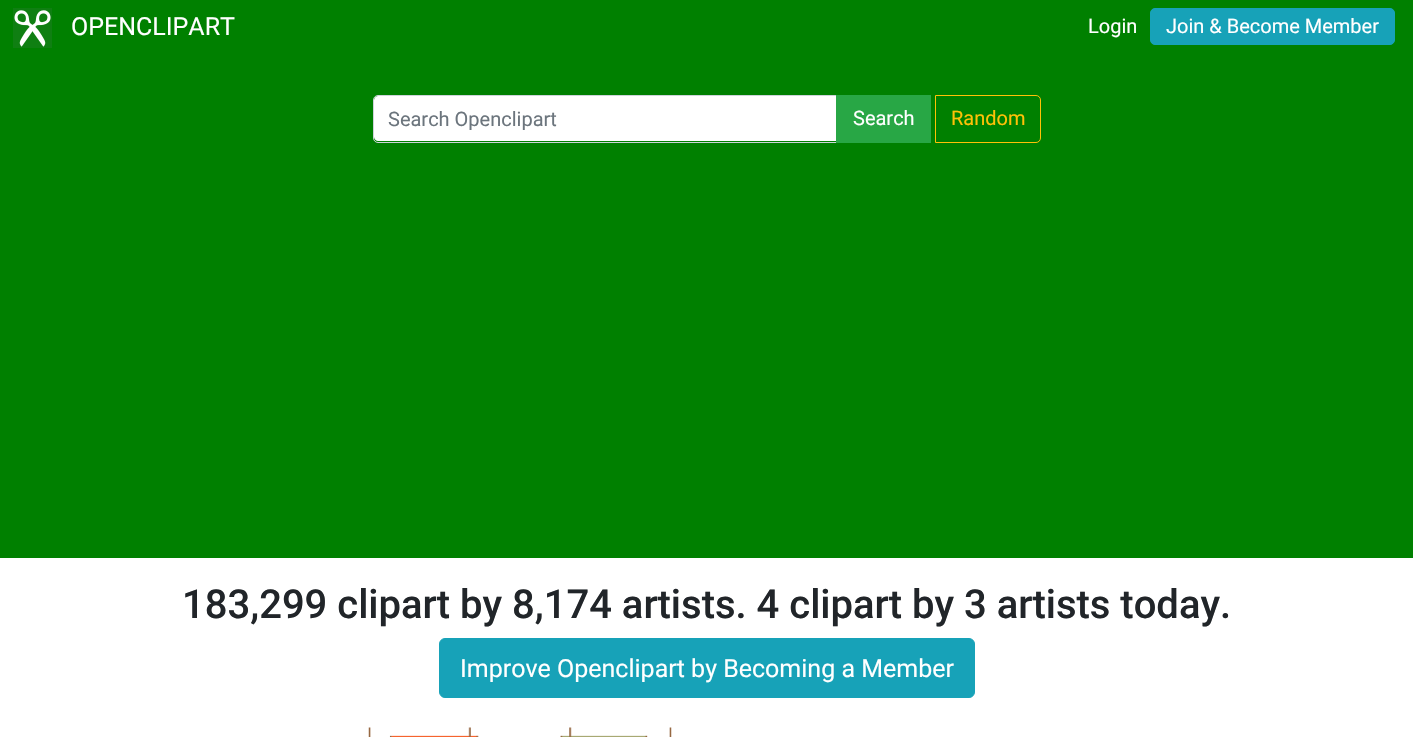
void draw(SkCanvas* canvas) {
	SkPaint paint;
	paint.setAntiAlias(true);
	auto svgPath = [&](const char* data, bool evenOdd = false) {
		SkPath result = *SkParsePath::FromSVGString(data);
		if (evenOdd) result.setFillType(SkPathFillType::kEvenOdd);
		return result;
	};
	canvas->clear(0xffffffff);
	paint.setColor(0xff008000);
	canvas->drawRect(SkRect::MakeXYWH(0, 0, 1413, 558), paint);
	canvas->drawImageRect(SkImages::DeferredFromEncodedData(SkData::MakeFromFileName("img1.png")), SkRect::MakeXYWH(13, 8, 39, 40), SkSamplingOptions());
	SkFont f1(fontMgr->matchFamilyStyle("Roboto", SkFontStyle::Normal()), 25);
	f1.setSubpixel(true);
	paint.setColor(0xffffffff);
	canvas->drawString("OPENCLIPART", 71, 35, f1, paint);
	SkFont f2(fontMgr->matchFamilyStyle("Roboto", SkFontStyle::Normal()), 20);
	f2.setSubpixel(true);
	canvas->drawString("Login", 1088, 33, f2, paint);
	paint.setColor(0xff17a2b8);
	canvas->drawRoundRect(SkRect::MakeXYWH(1150.5, 8.5, 244, 36), 4.5, 4.5, paint);
	paint.setStroke(true);
	paint.setStrokeWidth(1);
	canvas->drawRoundRect(SkRect::MakeXYWH(1150.5, 8.5, 244, 36), 4.5, 4.5, paint);
	paint.setStroke(false);
	paint.setColor(0xffffffff);
	canvas->drawString("Join & Become Member", 1166, 33, f2, paint);
	canvas->drawPath(svgPath("M378 96H836V141H378C376 141 374 139 374 137V100C374 98 376 96 378 96Z"), paint);
	paint.setStroke(true);
	paint.setColor(0xffced4da);
	canvas->drawPath(svgPath("M378 95.5H837.5V142.5H378C375.5 142.5 373.5 140.5 373.5 138V100C373.5 97.5 375.5 95.5 378 95.5Z"), paint);
	paint.setStroke(false);
	paint.setColor(0xff6c757d);
	canvas->drawString("Search Openclipart", 388, 126, f2, paint);
	paint.setColor(0xff28a745);
	canvas->drawRect(SkRect::MakeXYWH(836, 95, 95, 48), paint);
	paint.setColor(0xffffffff);
	canvas->drawString("Search", 853, 125, f2, paint);
	paint.setStroke(true);
	paint.setColor(0xffffc107);
	canvas->drawPath(svgPath("M935.5 95.5H1036C1038.5 95.5 1040.5 97.5 1040.5 100V138C1040.5 140.5 1038.5 142.5 1036 142.5H935.5Z"), paint);
	paint.setStroke(false);
	canvas->drawString("Random", 951, 125, f2, paint);
	SkFont f3(fontMgr->matchFamilyStyle("Roboto", SkFontStyle(500, SkFontStyle::kNormal_Width, SkFontStyle::kUpright_Slant)), 40);
	f3.setSubpixel(true);
	paint.setColor(0xff212529);
	canvas->drawString("183,299 clipart by 8,174 artists. 4 clipart by 3 artists today.", 182, 618, f3, paint);
	paint.setColor(0xff17a2b8);
	canvas->drawRoundRect(SkRect::MakeXYWH(439.5, 638.5, 535, 59), 5.5, 5.5, paint);
	paint.setStroke(true);
	canvas->drawRoundRect(SkRect::MakeXYWH(439.5, 638.5, 535, 59), 5.5, 5.5, paint);
	paint.setStroke(false);
	paint.setColor(0xffffffff);
	canvas->drawString("Improve Openclipart by Becoming a Member", 460, 677, f1, paint);
	canvas->drawImageRect(SkImages::DeferredFromEncodedData(SkData::MakeFromFileName("img2.png")), SkRect::MakeXYWH(368, 727, 304, 10), SkSamplingOptions());
}
